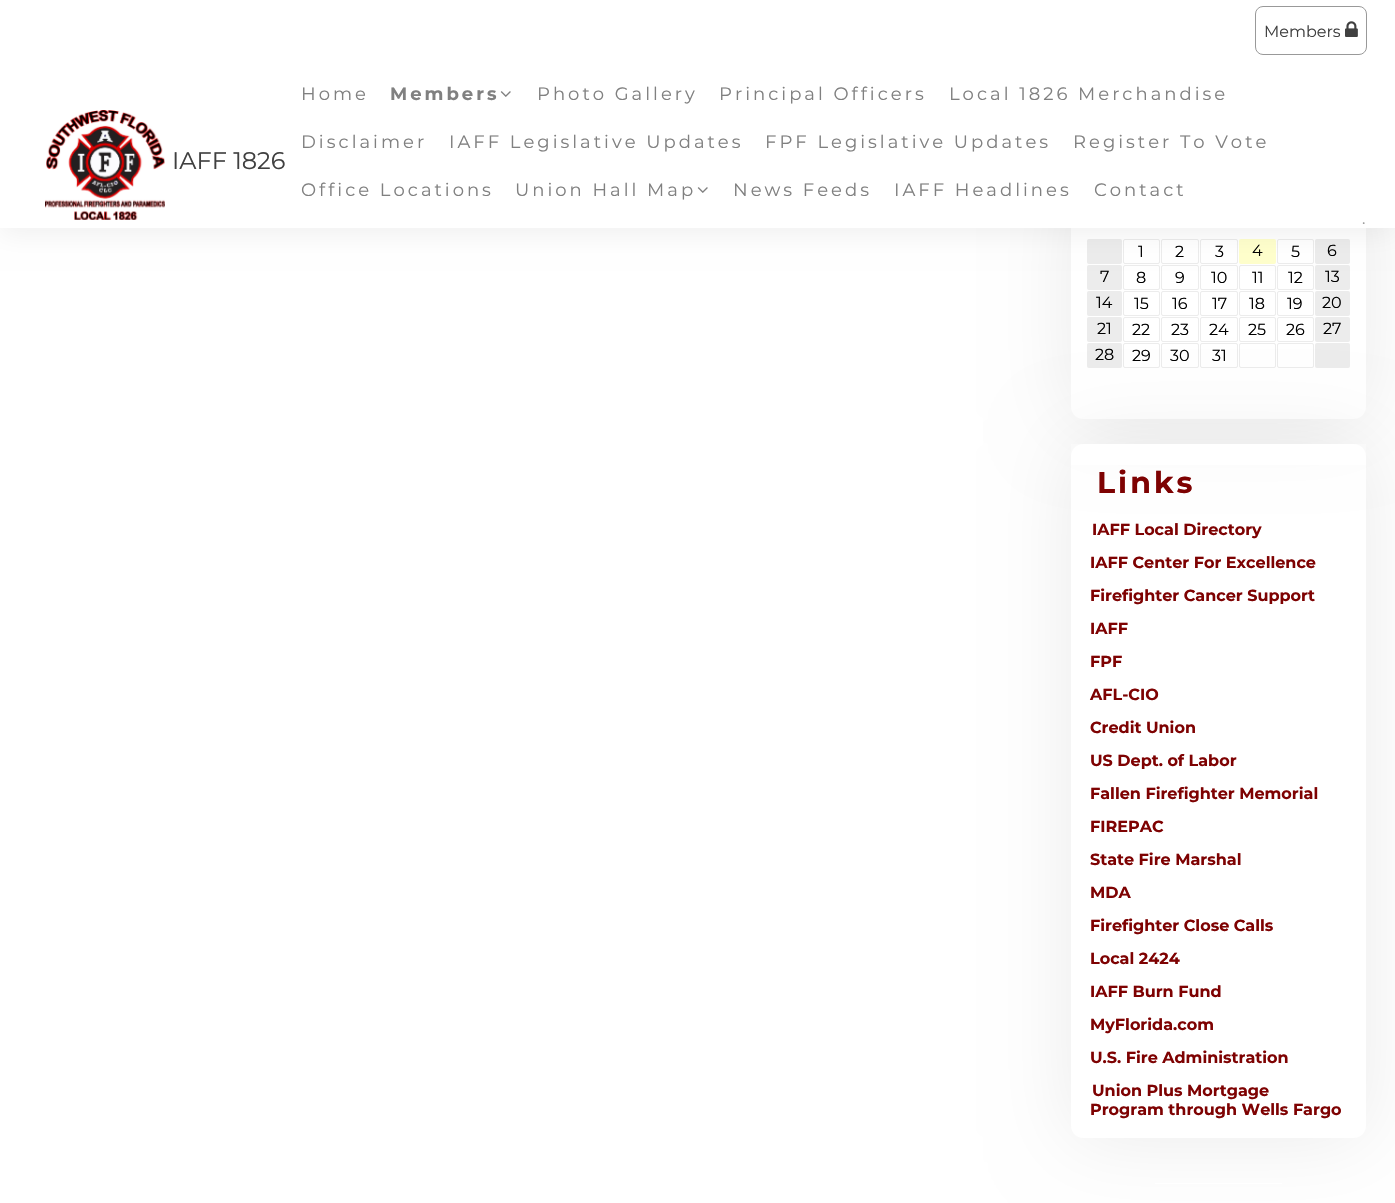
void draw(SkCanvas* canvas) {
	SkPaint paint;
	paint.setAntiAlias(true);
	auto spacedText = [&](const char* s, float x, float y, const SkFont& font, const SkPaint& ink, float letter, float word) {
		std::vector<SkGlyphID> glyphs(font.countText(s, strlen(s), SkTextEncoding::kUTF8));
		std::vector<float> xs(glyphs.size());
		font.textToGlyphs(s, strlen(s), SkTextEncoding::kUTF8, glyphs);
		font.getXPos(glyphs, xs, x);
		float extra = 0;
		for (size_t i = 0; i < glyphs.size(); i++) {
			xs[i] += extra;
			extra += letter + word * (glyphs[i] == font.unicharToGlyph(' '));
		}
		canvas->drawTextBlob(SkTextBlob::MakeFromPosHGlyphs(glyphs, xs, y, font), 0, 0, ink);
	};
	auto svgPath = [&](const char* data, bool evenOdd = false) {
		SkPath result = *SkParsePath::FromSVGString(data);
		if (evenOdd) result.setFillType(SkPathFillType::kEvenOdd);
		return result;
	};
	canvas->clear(0xffffffff);
	canvas->save();
	canvas->clipPath(svgPath("M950 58H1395V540H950ZM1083 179H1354C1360.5 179 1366 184.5 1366 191V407C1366 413.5 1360.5 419 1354 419H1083C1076.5 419 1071 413.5 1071 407V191C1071 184.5 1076.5 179 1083 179Z", true), true);
	paint.setColor(0x14000000);
	paint.setMaskFilter(SkMaskFilter::MakeBlur(kNormal_SkBlurStyle, 40));
	canvas->drawRoundRect(SkRect::MakeXYWH(1071, 179, 295, 240), 12, 12, paint);
	paint.setMaskFilter(nullptr);
	canvas->restore();
	paint.setColor(0xffececec);
	canvas->drawRoundRect(SkRect::MakeXYWH(1087, 239, 35, 25), 2, 2, paint);
	paint.setStroke(true);
	paint.setStrokeWidth(1);
	canvas->drawRoundRect(SkRect::MakeXYWH(1123.5, 239.5, 36, 24), 1.5, 1.5, paint);
	canvas->drawRoundRect(SkRect::MakeXYWH(1161.5, 239.5, 37, 24), 1.5, 1.5, paint);
	canvas->drawRoundRect(SkRect::MakeXYWH(1200.5, 239.5, 37, 24), 1.5, 1.5, paint);
	paint.setStroke(false);
	paint.setColor(0xffffffcc);
	canvas->drawRoundRect(SkRect::MakeXYWH(1239, 239, 37, 25), 2, 2, paint);
	paint.setStroke(true);
	paint.setColor(0xffececec);
	canvas->drawRoundRect(SkRect::MakeXYWH(1277.5, 239.5, 36, 24), 1.5, 1.5, paint);
	paint.setStroke(false);
	canvas->drawRoundRect(SkRect::MakeXYWH(1315, 239, 35, 25), 2, 2, paint);
	canvas->drawRoundRect(SkRect::MakeXYWH(1087, 265, 35, 25), 2, 2, paint);
	paint.setStroke(true);
	canvas->drawRoundRect(SkRect::MakeXYWH(1123.5, 265.5, 36, 24), 1.5, 1.5, paint);
	canvas->drawRoundRect(SkRect::MakeXYWH(1161.5, 265.5, 37, 24), 1.5, 1.5, paint);
	canvas->drawRoundRect(SkRect::MakeXYWH(1200.5, 265.5, 37, 24), 1.5, 1.5, paint);
	canvas->drawRoundRect(SkRect::MakeXYWH(1239.5, 265.5, 36, 24), 1.5, 1.5, paint);
	canvas->drawRoundRect(SkRect::MakeXYWH(1277.5, 265.5, 36, 24), 1.5, 1.5, paint);
	paint.setStroke(false);
	canvas->drawRoundRect(SkRect::MakeXYWH(1315, 265, 35, 25), 2, 2, paint);
	paint.setColor(0x0f000000);
	paint.setMaskFilter(SkMaskFilter::MakeBlur(kNormal_SkBlurStyle, 12.5));
	canvas->drawRect(SkRect::MakeXYWH(0, 6, 1395, 228), paint);
	paint.setMaskFilter(nullptr);
	paint.setColor(0xffffffff);
	canvas->drawRect(SkRect::MakeXYWH(0, 0, 1395, 228), paint);
	canvas->drawImageRect(SkImages::DeferredFromEncodedData(SkData::MakeFromFileName("img1.png")), SkRect::MakeXYWH(45, 110, 120, 110), SkSamplingOptions());
	SkFont f1(fontMgr->matchFamilyStyle("Montserrat", SkFontStyle::Normal()), 24);
	f1.setSubpixel(true);
	paint.setColor(0xff404040);
	canvas->drawString("IAFF 1826", 172, 169, f1, paint);
	paint.setStroke(true);
	paint.setColor(0xff999999);
	canvas->drawRoundRect(SkRect::MakeXYWH(1255.5, 6.5, 111, 48), 7.5, 7.5, paint);
	SkFont f2(fontMgr->matchFamilyStyle("Montserrat", SkFontStyle::Normal()), 16);
	f2.setSubpixel(true);
	paint.setStroke(false);
	paint.setColor(0xff404040);
	canvas->drawString("Members", 1264, 37, f2, paint);
	canvas->drawImageRect(SkImages::DeferredFromEncodedData(SkData::MakeFromFileName("img2.png")), SkRect::MakeXYWH(1345, 21, 13, 16), SkSamplingOptions());
	SkFont f3(fontMgr->matchFamilyStyle("Montserrat", SkFontStyle::Normal()), 18);
	f3.setSubpixel(true);
	paint.setColor(0xff808080);
	spacedText("Home", 301, 100, f3, paint, 3, 0);
	SkFont f4(fontMgr->matchFamilyStyle("Montserrat", SkFontStyle::Bold()), 18);
	f4.setSubpixel(true);
	spacedText("Members", 390, 100, f4, paint, 3, 0);
	canvas->drawImageRect(SkImages::DeferredFromEncodedData(SkData::MakeFromFileName("img3.png")), SkRect::MakeXYWH(500, 91, 11, 6), SkSamplingOptions());
	spacedText("Photo Gallery", 537, 100, f3, paint, 3, 0);
	spacedText("Principal Officers", 719, 100, f3, paint, 3, 0);
	spacedText("Local 1826 Merchandise", 949, 100, f3, paint, 3, 0);
	spacedText("Disclaimer", 301, 148, f3, paint, 3, 0);
	spacedText("IAFF Legislative Updates", 449, 148, f3, paint, 3, 0);
	spacedText("FPF Legislative Updates", 765, 148, f3, paint, 3, 0);
	spacedText("Register To Vote", 1073, 148, f3, paint, 3, 0);
	spacedText("Office Locations", 301, 196, f3, paint, 3, 0);
	spacedText("Union Hall Map", 515, 196, f3, paint, 3, 0);
	canvas->drawImageRect(SkImages::DeferredFromEncodedData(SkData::MakeFromFileName("img3.png")), SkRect::MakeXYWH(697, 187, 11, 6), SkSamplingOptions());
	spacedText("News Feeds", 733, 196, f3, paint, 3, 0);
	spacedText("IAFF Headlines", 894, 196, f3, paint, 3, 0);
	spacedText("Contact", 1094, 196, f3, paint, 3, 0);
	paint.setColor(0xff999999);
	canvas->drawString(".", 1362, 224, f2, paint);
	paint.setColor(0xff000000);
	canvas->drawString("1", 1138, 257, f2, paint);
	canvas->drawString("2", 1175, 257, f2, paint);
	canvas->drawString("3", 1215, 257, f2, paint);
	canvas->drawString("4", 1252, 256, f2, paint);
	canvas->drawString("5", 1291, 257, f2, paint);
	canvas->drawString("6", 1327, 256, f2, paint);
	canvas->drawString("7", 1100, 282, f2, paint);
	canvas->drawString("8", 1136, 283, f2, paint);
	canvas->drawString("9", 1175, 283, f2, paint);
	canvas->drawString("10", 1211, 283, f2, paint);
	canvas->drawString("11", 1252, 283, f2, paint);
	canvas->drawString("12", 1288, 283, f2, paint);
	canvas->drawString("13", 1325, 282, f2, paint);
	paint.setColor(0xffececec);
	canvas->drawRoundRect(SkRect::MakeXYWH(1087, 291, 35, 25), 2, 2, paint);
	paint.setColor(0xff000000);
	canvas->drawString("14", 1096, 308, f2, paint);
	paint.setStroke(true);
	paint.setColor(0xffececec);
	canvas->drawRoundRect(SkRect::MakeXYWH(1123.5, 291.5, 36, 24), 1.5, 1.5, paint);
	paint.setStroke(false);
	paint.setColor(0xff000000);
	canvas->drawString("15", 1134, 309, f2, paint);
	paint.setStroke(true);
	paint.setColor(0xffececec);
	canvas->drawRoundRect(SkRect::MakeXYWH(1161.5, 291.5, 37, 24), 1.5, 1.5, paint);
	paint.setStroke(false);
	paint.setColor(0xff000000);
	canvas->drawString("16", 1172, 309, f2, paint);
	paint.setStroke(true);
	paint.setColor(0xffececec);
	canvas->drawRoundRect(SkRect::MakeXYWH(1200.5, 291.5, 37, 24), 1.5, 1.5, paint);
	paint.setStroke(false);
	paint.setColor(0xff000000);
	canvas->drawString("17", 1212, 309, f2, paint);
	paint.setStroke(true);
	paint.setColor(0xffececec);
	canvas->drawRoundRect(SkRect::MakeXYWH(1239.5, 291.5, 36, 24), 1.5, 1.5, paint);
	paint.setStroke(false);
	paint.setColor(0xff000000);
	canvas->drawString("18", 1249, 309, f2, paint);
	paint.setStroke(true);
	paint.setColor(0xffececec);
	canvas->drawRoundRect(SkRect::MakeXYWH(1277.5, 291.5, 36, 24), 1.5, 1.5, paint);
	paint.setStroke(false);
	paint.setColor(0xff000000);
	canvas->drawString("19", 1287, 309, f2, paint);
	paint.setColor(0xffececec);
	canvas->drawRoundRect(SkRect::MakeXYWH(1315, 291, 35, 25), 2, 2, paint);
	paint.setColor(0xff000000);
	canvas->drawString("20", 1322, 308, f2, paint);
	paint.setColor(0xffececec);
	canvas->drawRoundRect(SkRect::MakeXYWH(1087, 317, 35, 25), 2, 2, paint);
	paint.setStroke(true);
	canvas->drawRoundRect(SkRect::MakeXYWH(1123.5, 317.5, 36, 24), 1.5, 1.5, paint);
	canvas->drawRoundRect(SkRect::MakeXYWH(1161.5, 317.5, 37, 24), 1.5, 1.5, paint);
	canvas->drawRoundRect(SkRect::MakeXYWH(1200.5, 317.5, 37, 24), 1.5, 1.5, paint);
	canvas->drawRoundRect(SkRect::MakeXYWH(1239.5, 317.5, 36, 24), 1.5, 1.5, paint);
	canvas->drawRoundRect(SkRect::MakeXYWH(1277.5, 317.5, 36, 24), 1.5, 1.5, paint);
	paint.setStroke(false);
	canvas->drawRoundRect(SkRect::MakeXYWH(1315, 317, 35, 25), 2, 2, paint);
	canvas->drawRoundRect(SkRect::MakeXYWH(1087, 343, 35, 25), 2, 2, paint);
	paint.setStroke(true);
	canvas->drawRoundRect(SkRect::MakeXYWH(1123.5, 343.5, 36, 24), 1.5, 1.5, paint);
	canvas->drawRoundRect(SkRect::MakeXYWH(1161.5, 343.5, 37, 24), 1.5, 1.5, paint);
	canvas->drawRoundRect(SkRect::MakeXYWH(1200.5, 343.5, 37, 24), 1.5, 1.5, paint);
	canvas->drawRoundRect(SkRect::MakeXYWH(1239.5, 343.5, 36, 24), 1.5, 1.5, paint);
	canvas->drawRoundRect(SkRect::MakeXYWH(1277.5, 343.5, 36, 24), 1.5, 1.5, paint);
	paint.setStroke(false);
	canvas->drawRoundRect(SkRect::MakeXYWH(1315, 343, 35, 25), 2, 2, paint);
	paint.setColor(0xffffffff);
	canvas->drawRect(SkRect::MakeXYWH(1071, 444, 295, 21), paint);
	canvas->save();
	canvas->clipPath(svgPath("M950 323H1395V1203H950ZM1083 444H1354C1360.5 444 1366 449.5 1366 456V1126C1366 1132.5 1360.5 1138 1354 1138H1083C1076.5 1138 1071 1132.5 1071 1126V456C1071 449.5 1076.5 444 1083 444Z", true), true);
	paint.setColor(0x14000000);
	paint.setMaskFilter(SkMaskFilter::MakeBlur(kNormal_SkBlurStyle, 40));
	canvas->drawRoundRect(SkRect::MakeXYWH(1071, 444, 295, 694), 12, 12, paint);
	paint.setMaskFilter(nullptr);
	canvas->restore();
	paint.setColor(0xff000000);
	canvas->drawString("21", 1097, 334, f2, paint);
	canvas->drawString("22", 1132, 335, f2, paint);
	canvas->drawString("23", 1171, 335, f2, paint);
	canvas->drawString("24", 1209, 335, f2, paint);
	canvas->drawString("25", 1248, 335, f2, paint);
	canvas->drawString("26", 1286, 335, f2, paint);
	canvas->drawString("27", 1323, 334, f2, paint);
	canvas->drawString("28", 1095, 360, f2, paint);
	canvas->drawString("29", 1132, 361, f2, paint);
	canvas->drawString("30", 1170, 361, f2, paint);
	canvas->drawString("31", 1212, 361, f2, paint);
	SkFont f5(fontMgr->matchFamilyStyle("Montserrat", SkFontStyle::Bold()), 30);
	f5.setSubpixel(true);
	paint.setColor(0xff7e0202);
	spacedText("Links", 1097, 493, f5, paint, 3, 0);
	SkFont f6(fontMgr->matchFamilyStyle("Montserrat", SkFontStyle::Bold()), 16);
	f6.setSubpixel(true);
	canvas->drawString("IAFF Local Directory", 1092, 535, f6, paint);
	canvas->drawString("IAFF Center For Excellence", 1090, 568, f6, paint);
	canvas->drawString("Firefighter Cancer Support", 1090, 601, f6, paint);
	canvas->drawString("IAFF", 1090, 634, f6, paint);
	canvas->drawString("FPF", 1090, 667, f6, paint);
	canvas->drawString("AFL-CIO", 1090, 700, f6, paint);
	canvas->drawString("Credit Union", 1090, 733, f6, paint);
	canvas->drawString("US Dept. of Labor", 1090, 766, f6, paint);
	canvas->drawString("Fallen Firefighter Memorial", 1090, 799, f6, paint);
	canvas->drawString("FIREPAC", 1090, 832, f6, paint);
	canvas->drawString("State Fire Marshal", 1090, 865, f6, paint);
	canvas->drawString("MDA", 1090, 898, f6, paint);
	canvas->drawString("Firefighter Close Calls", 1090, 931, f6, paint);
	canvas->drawString("Local 2424", 1090, 964, f6, paint);
	canvas->drawString("IAFF Burn Fund", 1090, 997, f6, paint);
	canvas->drawString("MyFlorida.com", 1090, 1030, f6, paint);
	canvas->drawString("U.S. Fire Administration", 1090, 1063, f6, paint);
	canvas->drawString("Union Plus Mortgage", 1092, 1096, f6, paint);
	canvas->drawString("Program through Wells Fargo", 1090, 1115, f6, paint);
	paint.setColor(0xffffffff);
	canvas->drawRect(SkRect::MakeXYWH(1155, 1183, 127, 1), paint);
}
